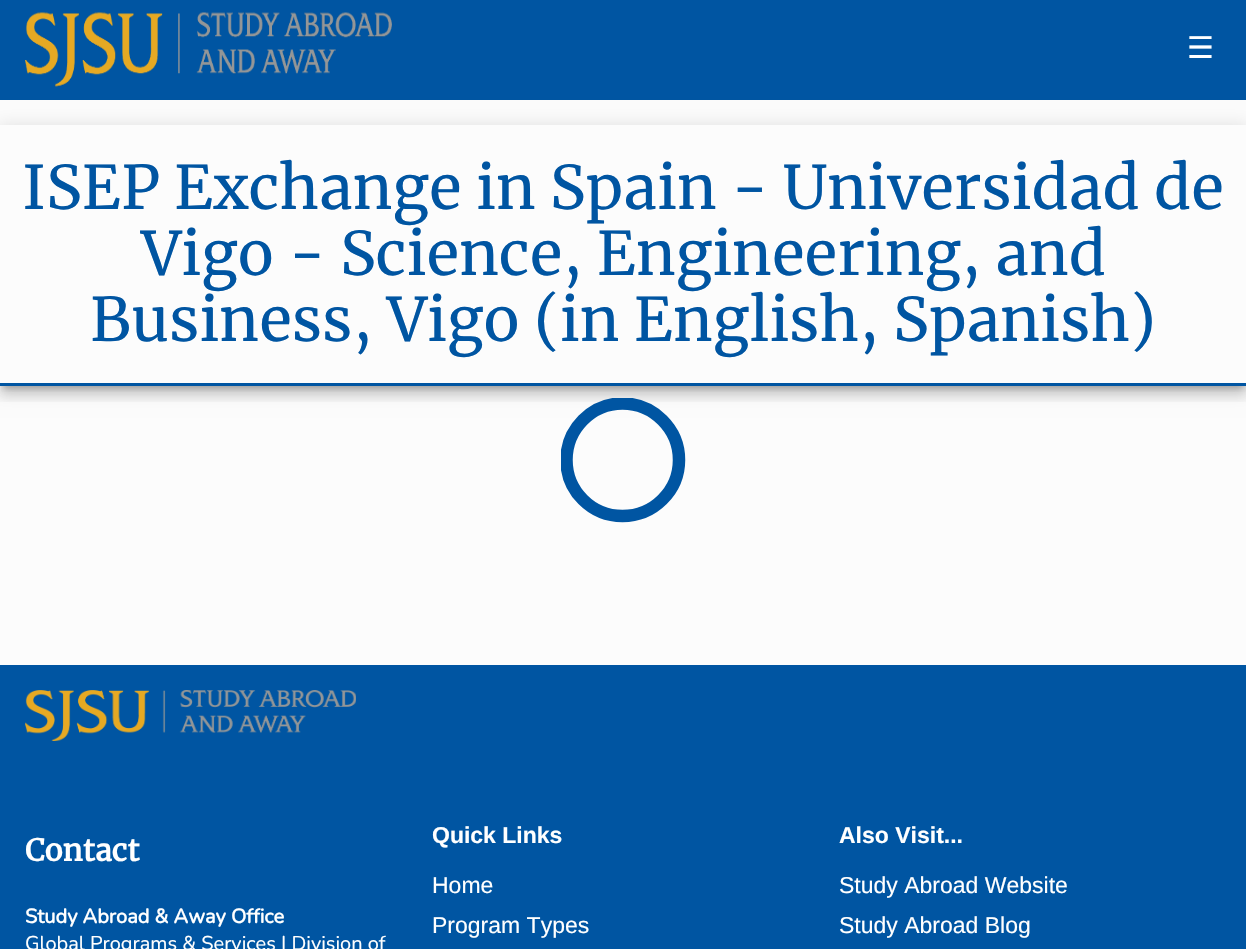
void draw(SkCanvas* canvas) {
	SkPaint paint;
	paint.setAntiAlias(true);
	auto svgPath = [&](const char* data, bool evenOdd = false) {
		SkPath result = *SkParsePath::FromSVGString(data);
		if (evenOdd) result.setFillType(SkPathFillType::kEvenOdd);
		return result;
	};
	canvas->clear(0xfffcfcfc);
	paint.setColor(0xff0055a2);
	canvas->drawRect(SkRect::MakeXYWH(0, 0, 1246, 100), paint);
	canvas->drawImageRect(SkImages::DeferredFromEncodedData(SkData::MakeFromFileName("img1.png")), SkRect::MakeXYWH(25, 12, 367, 75), SkSamplingOptions());
	SkFont f1(fontMgr->matchFamilyStyle("DejaVu Sans", SkFontStyle::Normal()), 30);
	f1.setSubpixel(true);
	paint.setColor(0xffffffff);
	canvas->drawString("☰", 1187, 58, f1, paint);
	canvas->save();
	canvas->clipPath(svgPath("M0 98H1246V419H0ZM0 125H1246V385H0Z", true), true);
	paint.setColor(0x1f000000);
	paint.setMaskFilter(SkMaskFilter::MakeBlur(kNormal_SkBlurStyle, 9));
	canvas->drawRect(SkRect::MakeXYWH(-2, 126, 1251, 265), paint);
	paint.setMaskFilter(nullptr);
	canvas->restore();
	canvas->save();
	canvas->clipRect(SkRect::MakeXYWH(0, 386, 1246, 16));
	paint.setColor(0x24000000);
	paint.setMaskFilter(SkMaskFilter::MakeBlur(kNormal_SkBlurStyle, 6));
	canvas->drawRect(SkRect::MakeXYWH(-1, 134, 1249, 262), paint);
	paint.setMaskFilter(nullptr);
	canvas->restore();
	canvas->save();
	canvas->clipRect(SkRect::MakeXYWH(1, 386, 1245, 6));
	paint.setColor(0x33000000);
	paint.setMaskFilter(SkMaskFilter::MakeBlur(kNormal_SkBlurStyle, 3));
	canvas->drawRect(SkRect::MakeXYWH(4, 135, 1239, 253), paint);
	paint.setMaskFilter(nullptr);
	canvas->restore();
	paint.setColor(0xff0055a2);
	canvas->drawRect(SkRect::MakeXYWH(0, 383, 1246, 3), paint);
	SkFont f2(fontMgr->matchFamilyStyle("Merriweather", SkFontStyle::Normal()), 60);
	f2.setSubpixel(true);
	canvas->drawString("ISEP Exchange in Spain - Universidad de", 22, 209, f2, paint);
	canvas->drawString("Vigo - Science, Engineering, and", 141, 275, f2, paint);
	canvas->drawString("Business, Vigo (in English, Spanish)", 90, 341, f2, paint);
	canvas->save();
	canvas->clipRect(SkRect::MakeXYWH(561, 398, 125, 125));
	paint.setStroke(true);
	paint.setStrokeWidth(12.5);
	canvas->drawPath(svgPath("M566.5 460C566.5 429 591.5 403.5 622.5 403.5C653.5 403.5 679 429 679 460C679 491 653.5 516 622.5 516C591.5 516 566.5 491 566.5 460"), paint);
	canvas->restore();
	paint.setStroke(false);
	canvas->drawRect(SkRect::MakeXYWH(0, 665, 1246, 284), paint);
	canvas->drawImageRect(SkImages::DeferredFromEncodedData(SkData::MakeFromFileName("img2.png")), SkRect::MakeXYWH(25, 690, 331, 51), SkSamplingOptions());
	SkFont f3(fontMgr->matchFamilyStyle("Merriweather", SkFontStyle::Bold()), 30);
	f3.setSubpixel(true);
	paint.setColor(0xffffffff);
	canvas->drawString("Contact", 25, 861, f3, paint);
	SkFont f4(fontMgr->matchFamilyStyle("Nunito", SkFontStyle::Bold()), 20);
	f4.setSubpixel(true);
	canvas->drawString("Study Abroad & Away Office", 25, 923, f4, paint);
	SkFont f5(fontMgr->matchFamilyStyle("Nunito", SkFontStyle::Normal()), 20);
	f5.setSubpixel(true);
	canvas->drawString("Global Programs & Services | Division of", 25, 950, f5, paint);
	SkFont f6(fontMgr->matchFamilyStyle("Liberation Sans", SkFontStyle::Bold()), 23);
	f6.setSubpixel(true);
	canvas->drawString("Quick Links", 432, 843, f6, paint);
	SkFont f7(fontMgr->matchFamilyStyle("Liberation Sans", SkFontStyle::Normal()), 23);
	f7.setSubpixel(true);
	canvas->drawString("Home", 432, 893, f7, paint);
	canvas->drawString("Program Types", 432, 933, f7, paint);
	canvas->drawString("Also Visit...", 839, 843, f6, paint);
	canvas->drawString("Study Abroad Website", 839, 893, f7, paint);
	canvas->drawString("Study Abroad Blog", 839, 933, f7, paint);
}
